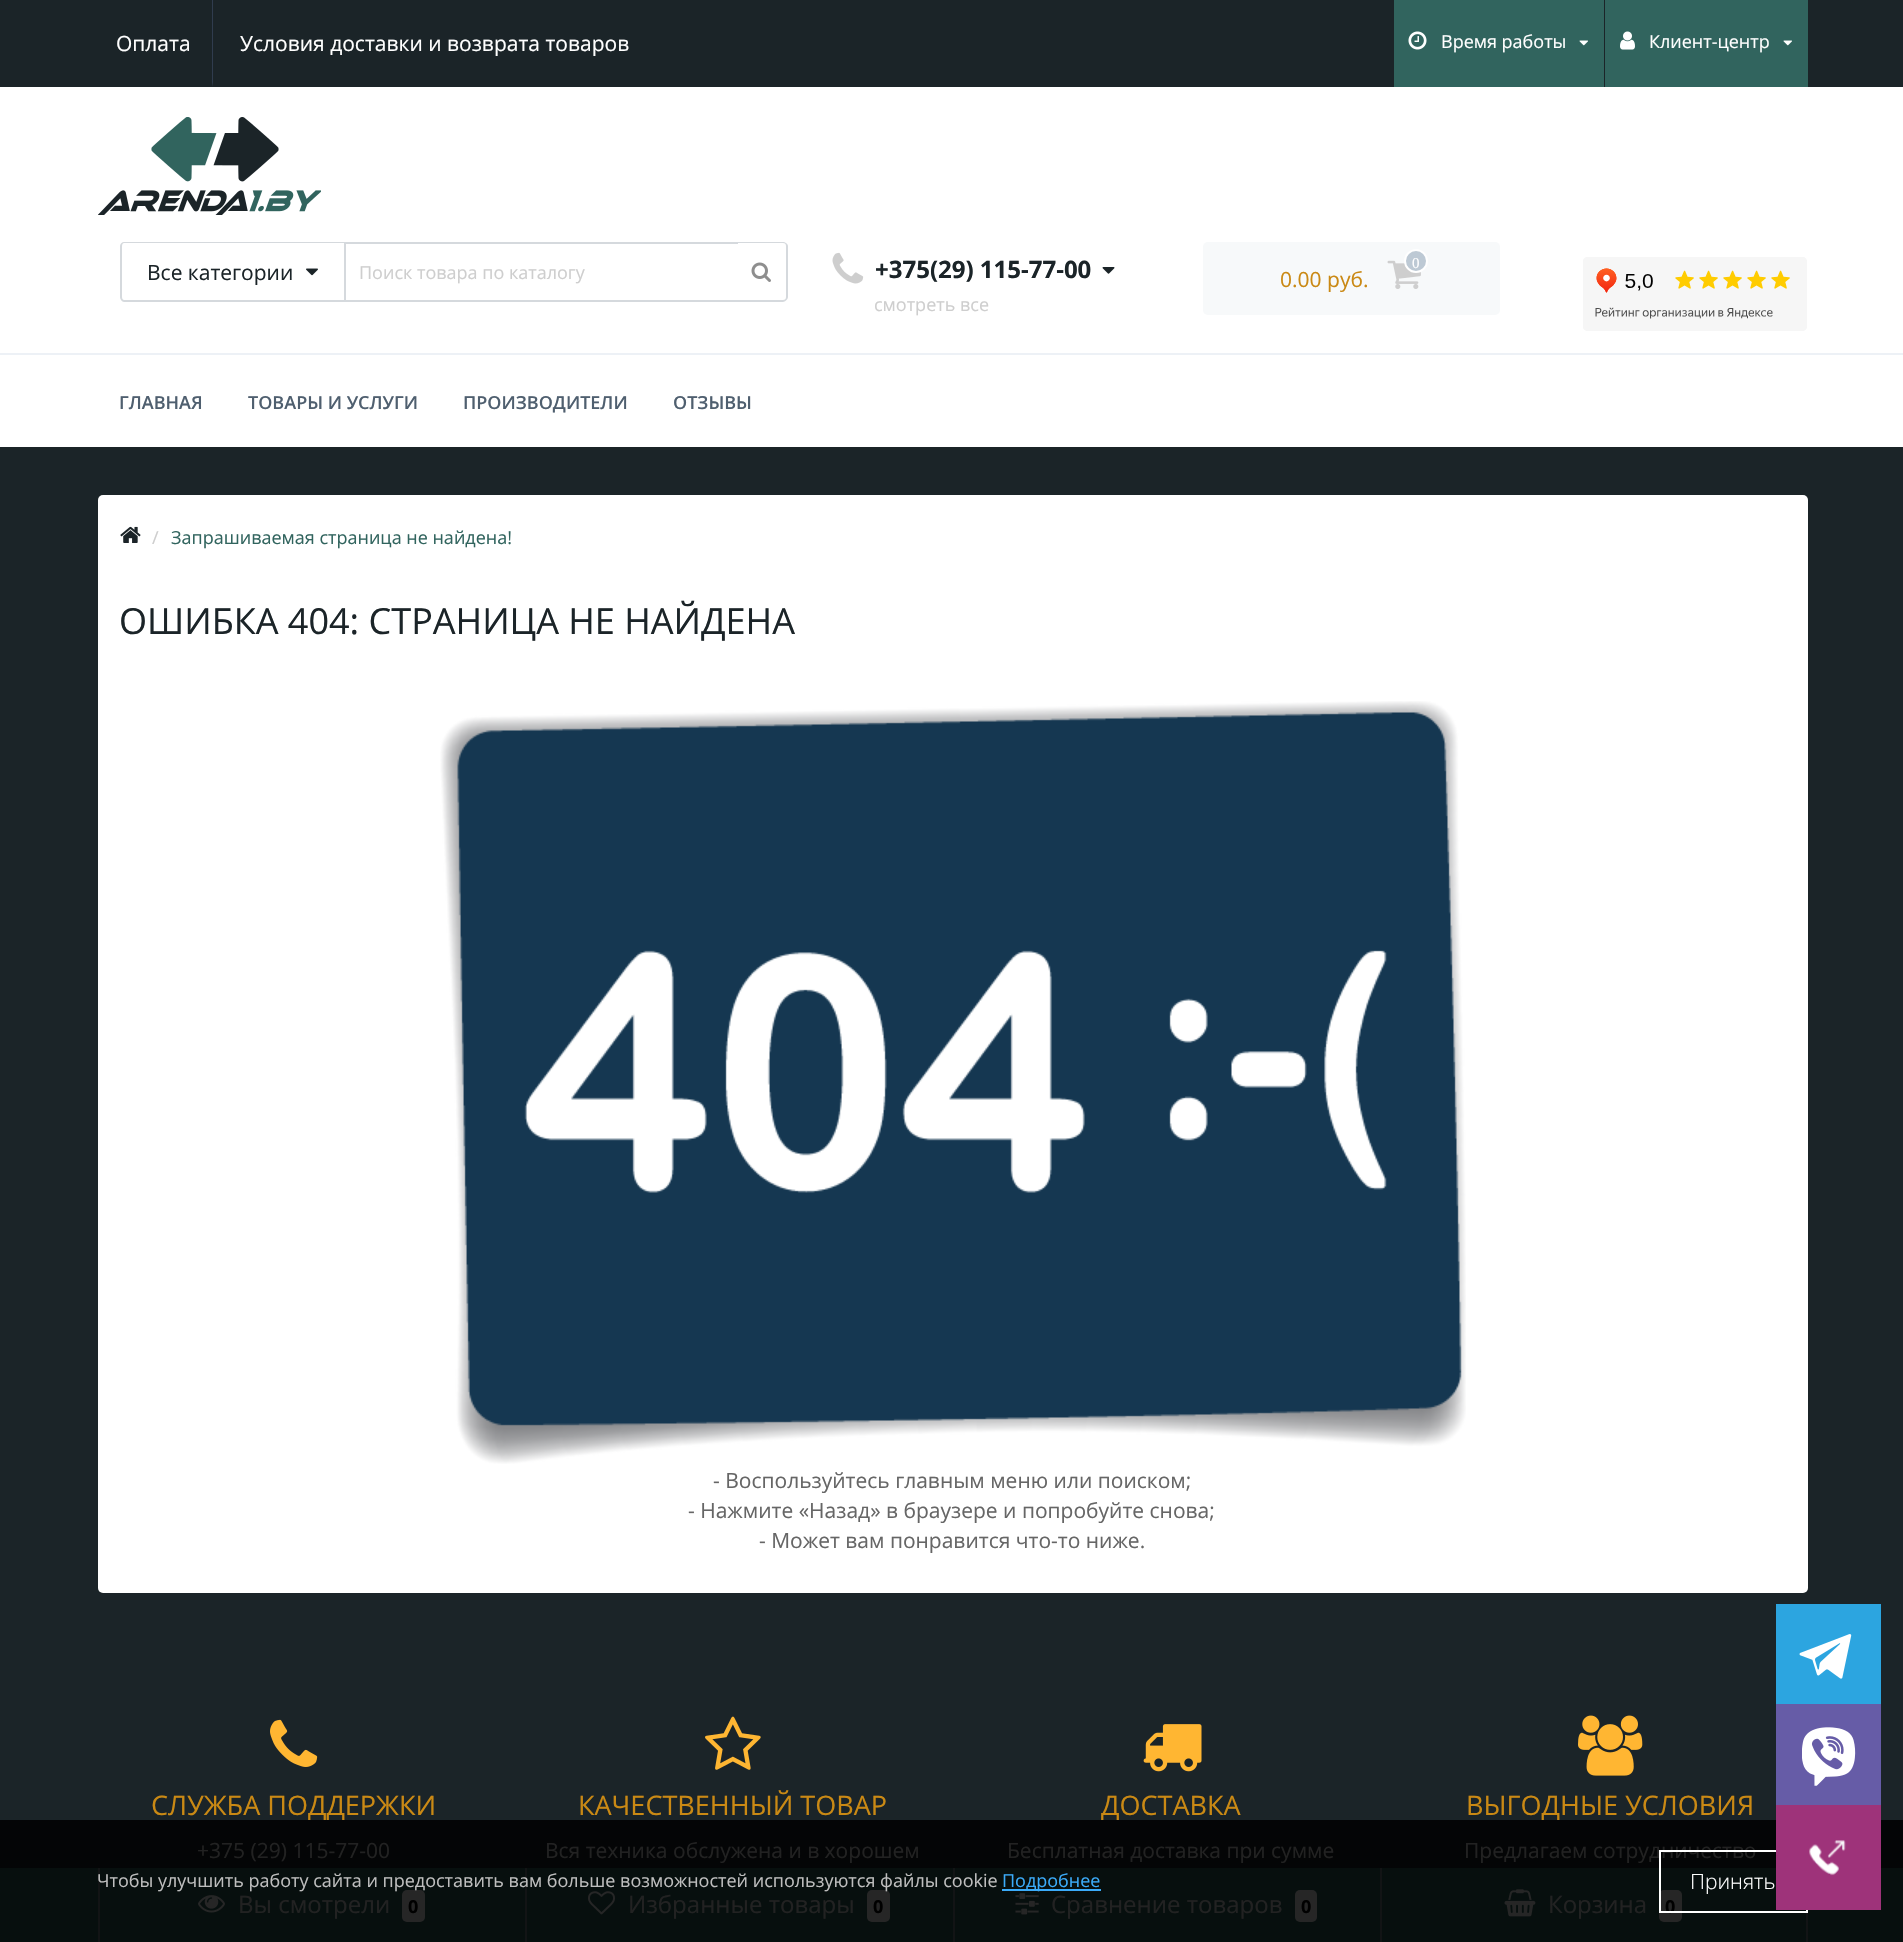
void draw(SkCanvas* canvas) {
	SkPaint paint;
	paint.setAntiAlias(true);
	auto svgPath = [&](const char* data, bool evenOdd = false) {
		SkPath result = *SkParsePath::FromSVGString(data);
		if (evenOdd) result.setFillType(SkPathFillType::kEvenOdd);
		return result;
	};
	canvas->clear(0xff1b2428);
	paint.setColor(0xff040506);
	canvas->drawRect(SkRect::MakeXYWH(0, 1820, 1903, 48), paint);
	SkFont f1(fontMgr->matchFamilyStyle("Open Sans", SkFontStyle::Normal()), 21);
	f1.setSubpixel(true);
	paint.setColor(0xffffffff);
	canvas->drawString("Оплата", 116, 51, f1, paint);
	paint.setColor(0xff303c4e);
	canvas->drawPath(svgPath("M212 87V0H213V82Z"), paint);
	paint.setColor(0xffffffff);
	canvas->drawString("Условия доставки и возврата товаров", 240, 51, f1, paint);
	paint.setColor(0xff31645e);
	canvas->drawRect(SkRect::MakeXYWH(1394, 0, 210, 87), paint);
	canvas->drawImageRect(SkImages::DeferredFromEncodedData(SkData::MakeFromFileName("img1.png")), SkRect::MakeXYWH(1408, 31, 19, 19), SkSamplingOptions());
	SkFont f2(fontMgr->matchFamilyStyle("Open Sans", SkFontStyle::Normal()), 18);
	f2.setSubpixel(true);
	paint.setColor(0xffffffff);
	canvas->drawString("Время работы", 1441, 48, f2, paint);
	canvas->drawImageRect(SkImages::DeferredFromEncodedData(SkData::MakeFromFileName("img2.png")), SkRect::MakeXYWH(1579, 40, 9, 6), SkSamplingOptions());
	paint.setColor(0xff31645e);
	canvas->drawRect(SkRect::MakeXYWH(1605, 0, 203, 87), paint);
	canvas->drawImageRect(SkImages::DeferredFromEncodedData(SkData::MakeFromFileName("img3.png")), SkRect::MakeXYWH(1620, 31, 15, 19), SkSamplingOptions());
	paint.setColor(0xffffffff);
	canvas->drawString("Клиент-центр", 1649, 48, f2, paint);
	canvas->drawImageRect(SkImages::DeferredFromEncodedData(SkData::MakeFromFileName("img2.png")), SkRect::MakeXYWH(1783, 40, 9, 6), SkSamplingOptions());
	canvas->drawRect(SkRect::MakeXYWH(0, 87, 1903, 266), paint);
	canvas->drawImageRect(SkImages::DeferredFromEncodedData(SkData::MakeFromFileName("img4.png")), SkRect::MakeXYWH(98, 117, 223, 98), SkSamplingOptions());
	paint.setColor(0xffd5d9dd);
	canvas->drawRect(SkRect::MakeXYWH(344, 242, 394, 2), paint);
	canvas->drawRect(SkRect::MakeXYWH(344, 300, 394, 2), paint);
	canvas->drawRect(SkRect::MakeXYWH(344, 242, 2, 60), paint);
	canvas->drawPath(svgPath("M124 242H345V302H124C122 302 120 299 120 297V246C120 244 122 242 124 242ZM124 243H345V300H124C123 300 122 299 122 297V246C122 244 123 243 124 243Z", true), paint);
	paint.setColor(0xff1b2428);
	canvas->drawString("Все категории", 147, 280, f1, paint);
	canvas->drawImageRect(SkImages::DeferredFromEncodedData(SkData::MakeFromFileName("img5.png")), SkRect::MakeXYWH(306, 268, 12, 8), SkSamplingOptions());
	paint.setColor(0xffcecece);
	canvas->drawString("Поиск товара по каталогу", 359, 279, f2, paint);
	paint.setColor(0xffd5d9dd);
	canvas->drawPath(svgPath("M736 242H783C785 242 788 244 788 246V297C788 299 785 302 783 302H736ZM736 243H783C785 243 786 244 786 246V297C786 299 785 300 783 300H736Z", true), paint);
	canvas->drawImageRect(SkImages::DeferredFromEncodedData(SkData::MakeFromFileName("img6.png")), SkRect::MakeXYWH(751, 262, 20, 20), SkSamplingOptions());
	canvas->drawImageRect(SkImages::DeferredFromEncodedData(SkData::MakeFromFileName("img7.png")), SkRect::MakeXYWH(832, 252, 32, 32), SkSamplingOptions());
	SkFont f3(fontMgr->matchFamilyStyle("Open Sans", SkFontStyle::Bold()), 24);
	f3.setSubpixel(true);
	paint.setColor(0xff1b2428);
	canvas->drawString("+375(29) 115-77-00", 875, 278, f3, paint);
	canvas->drawImageRect(SkImages::DeferredFromEncodedData(SkData::MakeFromFileName("img8.png")), SkRect::MakeXYWH(1102, 267, 13, 7), SkSamplingOptions());
	paint.setColor(0xffcecece);
	canvas->drawString("смотреть все", 874, 311, f2, paint);
	paint.setColor(0xfff7f9fa);
	canvas->drawRoundRect(SkRect::MakeXYWH(1203, 242, 297, 73), 5, 5, paint);
	canvas->drawImageRect(SkImages::DeferredFromEncodedData(SkData::MakeFromFileName("img9.png")), SkRect::MakeXYWH(1387, 260, 34, 29), SkSamplingOptions());
	paint.setColor(0xffbdc9d4);
	canvas->drawCircle(1416, 261, 11, paint);
	paint.setStroke(true);
	paint.setStrokeWidth(2);
	paint.setColor(0xffffffff);
	canvas->drawCircle(1416, 261, 11, paint);
	SkFont f4(fontMgr->matchFamilyStyle("Liberation Serif", SkFontStyle::Normal()), 15);
	f4.setSubpixel(true);
	paint.setStroke(false);
	canvas->drawString("0", 1412, 268, f4, paint);
	SkFont f5(fontMgr->matchFamilyStyle("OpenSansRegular", SkFontStyle::Normal()), 21);
	f5.setSubpixel(true);
	paint.setColor(0xffca8914);
	canvas->drawString("0.00 руб.", 1280, 287, f5, paint);
	canvas->drawImageRect(SkImages::DeferredFromEncodedData(SkData::MakeFromFileName("img10.png")), SkRect::MakeXYWH(1583, 257, 224, 74), SkSamplingOptions());
	paint.setColor(0xffffffff);
	canvas->drawRect(SkRect::MakeXYWH(0, 355, 1903, 92), paint);
	paint.setColor(0xffedf1f6);
	canvas->drawRect(SkRect::MakeXYWH(0, 353, 1903, 2), paint);
	SkFont f6(fontMgr->matchFamilyStyle("Open Sans", SkFontStyle(600, SkFontStyle::kNormal_Width, SkFontStyle::kUpright_Slant)), 18);
	f6.setSubpixel(true);
	paint.setColor(0xff4f5f6f);
	canvas->drawString("ГЛАВНАЯ", 119, 409, f6, paint);
	canvas->drawString("ТОВАРЫ И УСЛУГИ", 248, 409, f6, paint);
	canvas->drawString("ПРОИЗВОДИТЕЛИ", 463, 409, f6, paint);
	canvas->drawString("ОТЗЫВЫ", 673, 409, f6, paint);
	paint.setColor(0xffffffff);
	canvas->drawRoundRect(SkRect::MakeXYWH(98, 495, 1710, 1098), 5, 5, paint);
	canvas->drawImageRect(SkImages::DeferredFromEncodedData(SkData::MakeFromFileName("img11.png")), SkRect::MakeXYWH(120, 526, 21, 17), SkSamplingOptions());
	paint.setColor(0xffcecece);
	canvas->drawString("/", 152, 544, f2, paint);
	paint.setColor(0xff31645e);
	canvas->drawString("Запрашиваемая страница не найдена!", 171, 544, f2, paint);
	SkFont f7(fontMgr->matchFamilyStyle("OpenSansRegular", SkFontStyle::Normal()), 36);
	f7.setSubpixel(true);
	paint.setColor(0xff1b2428);
	canvas->drawString("ОШИБКА 404: СТРАНИЦА НЕ НАЙДЕНА", 119, 634, f7, paint);
	canvas->drawImageRect(SkImages::DeferredFromEncodedData(SkData::MakeFromFileName("img12.png")), SkRect::MakeXYWH(440, 701, 1026, 763), SkSamplingOptions());
	paint.setColor(0xff666666);
	canvas->drawString("- Воспользуйтесь главным меню или поиском;", 713, 1488, f1, paint);
	canvas->drawString("- Нажмите «Назад» в браузере и попробуйте снова;", 688, 1518, f1, paint);
	canvas->drawString("- Может вам понравится что-то ниже.", 759, 1548, f1, paint);
	canvas->drawImageRect(SkImages::DeferredFromEncodedData(SkData::MakeFromFileName("img13.png")), SkRect::MakeXYWH(270, 1719, 48, 48), SkSamplingOptions());
	SkFont f8(fontMgr->matchFamilyStyle("OpenSansRegular", SkFontStyle::Normal()), 27);
	f8.setSubpixel(true);
	paint.setColor(0xffca8914);
	canvas->drawString("СЛУЖБА ПОДДЕРЖКИ", 151, 1815, f8, paint);
	paint.setColor(0xff222222);
	canvas->drawString("+375 (29) 115-77-00", 197, 1858, f5, paint);
	canvas->drawImageRect(SkImages::DeferredFromEncodedData(SkData::MakeFromFileName("img14.png")), SkRect::MakeXYWH(705, 1716, 56, 54), SkSamplingOptions());
	paint.setColor(0xffca8914);
	canvas->drawString("КАЧЕСТВЕННЫЙ ТОВАР", 578, 1815, f8, paint);
	paint.setColor(0xff222222);
	canvas->drawString("Вся техника обслужена и в хорошем", 545, 1858, f5, paint);
	canvas->drawImageRect(SkImages::DeferredFromEncodedData(SkData::MakeFromFileName("img15.png")), SkRect::MakeXYWH(1143, 1724, 59, 48), SkSamplingOptions());
	paint.setColor(0xffca8914);
	canvas->drawString("ДОСТАВКА", 1101, 1815, f8, paint);
	paint.setColor(0xff222222);
	canvas->drawString("Бесплатная доставка при сумме", 1007, 1858, f5, paint);
	canvas->drawImageRect(SkImages::DeferredFromEncodedData(SkData::MakeFromFileName("img16.png")), SkRect::MakeXYWH(1578, 1715, 65, 61), SkSamplingOptions());
	paint.setColor(0xffca8914);
	canvas->drawString("ВЫГОДНЫЕ УСЛОВИЯ", 1466, 1815, f8, paint);
	paint.setColor(0xff222222);
	canvas->drawString("Предлагаем сотрудничество", 1464, 1858, f5, paint);
	paint.setColor(0xff2ca5e0);
	canvas->drawRect(SkRect::MakeXYWH(1780, 1608, 97, 97), paint);
	paint.setStroke(true);
	paint.setStrokeWidth(8);
	canvas->drawRect(SkRect::MakeXYWH(1780, 1608, 97, 97), paint);
	canvas->drawImageRect(SkImages::DeferredFromEncodedData(SkData::MakeFromFileName("img17.png")), SkRect::MakeXYWH(1799, 1634, 53, 45), SkSamplingOptions());
	paint.setStroke(false);
	paint.setColor(0xff665ca7);
	canvas->drawRect(SkRect::MakeXYWH(1780, 1708, 97, 97), paint);
	paint.setStroke(true);
	canvas->drawRect(SkRect::MakeXYWH(1780, 1708, 97, 97), paint);
	canvas->drawImageRect(SkImages::DeferredFromEncodedData(SkData::MakeFromFileName("img18.png")), SkRect::MakeXYWH(1802, 1727, 54, 59), SkSamplingOptions());
	paint.setStroke(false);
	paint.setColor(0xff070f0e);
	canvas->drawRect(SkRect::MakeXYWH(0, 1868, 1903, 74), paint);
	paint.setColor(0xff262626);
	canvas->drawRoundRect(SkRect::MakeXYWH(1659, 1890, 23, 32), 5, 5, paint);
	SkFont f9(fontMgr->matchFamilyStyle("Open Sans", SkFontStyle::Bold()), 18);
	f9.setSubpixel(true);
	paint.setColor(0xff000000);
	canvas->drawString("0", 1665, 1913, f9, paint);
	paint.setStroke(true);
	paint.setStrokeWidth(2);
	paint.setColor(0xffffffff);
	canvas->drawRect(SkRect::MakeXYWH(1660, 1851, 147, 61), paint);
	paint.setStroke(false);
	paint.setColor(0xff9e337a);
	canvas->drawRect(SkRect::MakeXYWH(1780, 1809, 97, 97), paint);
	paint.setStroke(true);
	paint.setStrokeWidth(8);
	canvas->drawRect(SkRect::MakeXYWH(1780, 1809, 97, 97), paint);
	canvas->drawImageRect(SkImages::DeferredFromEncodedData(SkData::MakeFromFileName("img19.png")), SkRect::MakeXYWH(1809, 1840, 37, 36), SkSamplingOptions());
	paint.setStroke(false);
	paint.setColor(0xff121415);
	canvas->drawRect(SkRect::MakeXYWH(98, 1868, 2, 74), paint);
	paint.setColor(0xff262626);
	canvas->drawRoundRect(SkRect::MakeXYWH(402, 1890, 23, 32), 5, 5, paint);
	paint.setColor(0xff121415);
	canvas->drawRect(SkRect::MakeXYWH(525, 1868, 2, 74), paint);
	canvas->drawImageRect(SkImages::DeferredFromEncodedData(SkData::MakeFromFileName("img21.png")), SkRect::MakeXYWH(588, 1891, 27, 24), SkSamplingOptions());
	paint.setColor(0xff262626);
	canvas->drawRoundRect(SkRect::MakeXYWH(867, 1890, 23, 32), 5, 5, paint);
	paint.setColor(0xff121415);
	canvas->drawRect(SkRect::MakeXYWH(953, 1868, 2, 74), paint);
	paint.setColor(0xffbebebe);
	canvas->drawString("Чтобы улучшить работу сайта и предоставить вам больше возможностей используются файлы cookie", 97, 1887, f2, paint);
	paint.setColor(0xff3babf9);
	canvas->drawRect(SkRect::MakeXYWH(1002, 1889, 99, 2), paint);
	canvas->drawString("Подробнее", 1002, 1887, f2, paint);
	SkFont f10(fontMgr->matchFamilyStyle("Open Sans", SkFontStyle(300, SkFontStyle::kNormal_Width, SkFontStyle::kUpright_Slant)), 21);
	f10.setSubpixel(true);
	paint.setColor(0xffffffff);
	canvas->drawString("Принять", 1690, 1889, f10, paint);
	canvas->drawImageRect(SkImages::DeferredFromEncodedData(SkData::MakeFromFileName("img20.png")), SkRect::MakeXYWH(198, 1895, 27, 18), SkSamplingOptions());
	SkFont f11(fontMgr->matchFamilyStyle("Open Sans", SkFontStyle::Normal()), 24);
	f11.setSubpixel(true);
	paint.setColor(0xff222222);
	canvas->drawString("Вы смотрели", 238, 1913, f11, paint);
	paint.setColor(0xff000000);
	canvas->drawString("0", 408, 1913, f9, paint);
	paint.setColor(0xff222222);
	canvas->drawString("Избранные товары", 628, 1913, f11, paint);
	paint.setColor(0xff000000);
	canvas->drawString("0", 873, 1913, f9, paint);
	canvas->drawImageRect(SkImages::DeferredFromEncodedData(SkData::MakeFromFileName("img22.png")), SkRect::MakeXYWH(1015, 1893, 24, 22), SkSamplingOptions());
	paint.setColor(0xff222222);
	canvas->drawString("Сравнение товаров", 1051, 1913, f11, paint);
	paint.setColor(0xff262626);
	canvas->drawRoundRect(SkRect::MakeXYWH(1295, 1890, 22, 32), 5, 5, paint);
	paint.setColor(0xff000000);
	canvas->drawString("0", 1301, 1913, f9, paint);
	paint.setColor(0xff121415);
	canvas->drawRect(SkRect::MakeXYWH(1806, 1913, 2, 29), paint);
	canvas->drawRect(SkRect::MakeXYWH(1380, 1868, 2, 74), paint);
	canvas->drawImageRect(SkImages::DeferredFromEncodedData(SkData::MakeFromFileName("img23.png")), SkRect::MakeXYWH(1504, 1889, 32, 28), SkSamplingOptions());
	paint.setColor(0xff222222);
	canvas->drawString("Корзина", 1548, 1913, f11, paint);
}
